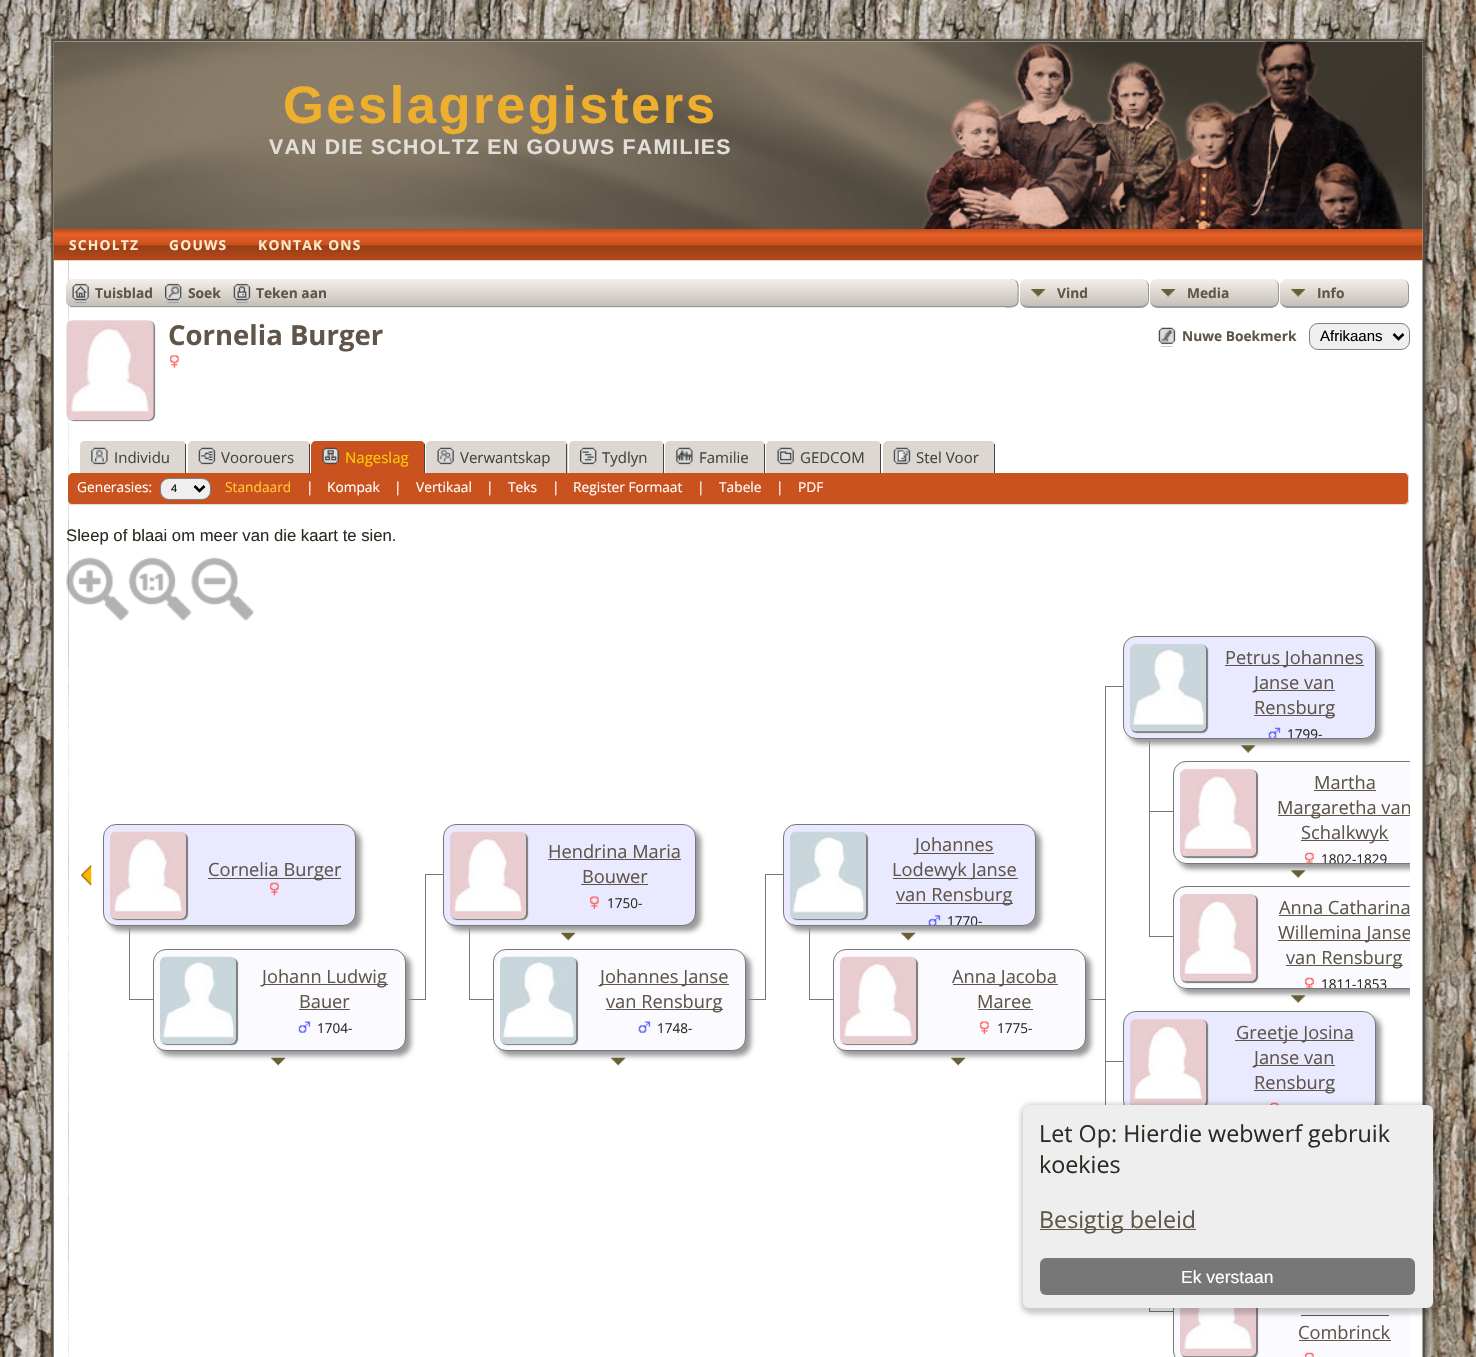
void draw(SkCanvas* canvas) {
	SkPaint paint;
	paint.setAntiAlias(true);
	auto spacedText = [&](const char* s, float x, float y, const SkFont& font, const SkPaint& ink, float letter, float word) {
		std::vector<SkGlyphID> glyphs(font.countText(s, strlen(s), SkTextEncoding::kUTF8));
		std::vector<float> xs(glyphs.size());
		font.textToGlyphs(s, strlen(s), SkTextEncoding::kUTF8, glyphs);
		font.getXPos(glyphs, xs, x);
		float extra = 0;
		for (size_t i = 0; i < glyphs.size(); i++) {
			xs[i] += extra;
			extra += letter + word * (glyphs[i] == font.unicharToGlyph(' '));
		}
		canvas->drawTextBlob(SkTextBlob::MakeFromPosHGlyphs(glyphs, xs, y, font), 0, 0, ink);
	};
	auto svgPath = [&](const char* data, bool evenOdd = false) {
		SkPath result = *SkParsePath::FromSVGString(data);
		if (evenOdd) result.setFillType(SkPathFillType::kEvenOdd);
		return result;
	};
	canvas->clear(0xffffffff);
	canvas->drawImageRect(SkImages::DeferredFromEncodedData(SkData::MakeFromFileName("img1.png")), SkRect::MakeXYWH(0, 0, 1476, 1357), SkSamplingOptions());
	canvas->drawImageRect(SkImages::DeferredFromEncodedData(SkData::MakeFromFileName("img2.png")), SkRect::MakeXYWH(50, 37, 19, 20), SkSamplingOptions());
	canvas->drawImageRect(SkImages::DeferredFromEncodedData(SkData::MakeFromFileName("img4.png")), SkRect::MakeXYWH(1407, 37, 23, 20), SkSamplingOptions());
	canvas->drawImageRect(SkImages::DeferredFromEncodedData(SkData::MakeFromFileName("img3.png")), SkRect::MakeXYWH(69, 37, 1339, 5), SkSamplingOptions());
	canvas->drawImageRect(SkImages::DeferredFromEncodedData(SkData::MakeFromFileName("img5.png")), SkRect::MakeXYWH(50, 56, 19, 1301), SkSamplingOptions());
	canvas->drawImageRect(SkImages::DeferredFromEncodedData(SkData::MakeFromFileName("img50.png")), SkRect::MakeXYWH(1408, 56, 22, 1301), SkSamplingOptions());
	canvas->drawImageRect(SkImages::DeferredFromEncodedData(SkData::MakeFromFileName("img6.png")), SkRect::MakeXYWH(53, 41, 1370, 188), SkSamplingOptions());
	SkFont f1(fontMgr->matchFamilyStyle("Liberation Sans", SkFontStyle::Bold()), 52.5);
	f1.setSubpixel(true);
	paint.setColor(0xffefaf2e);
	spacedText("Geslagregisters", 283, 123, f1, paint, 2.5, 0);
	SkFont f2(fontMgr->matchFamilyStyle("Liberation Sans", SkFontStyle::Bold()), 21.25);
	f2.setSubpixel(true);
	paint.setColor(0xffe2dfda);
	spacedText("VAN DIE SCHOLTZ EN GOUWS FAMILIES", 269, 154, f2, paint, 1.25, 0);
	canvas->drawImageRect(SkImages::DeferredFromEncodedData(SkData::MakeFromFileName("img7.png")), SkRect::MakeXYWH(922, 41, 482, 188), SkSamplingOptions());
	paint.setColor(0xffffffff);
	canvas->drawRect(SkRect::MakeXYWH(69, 260, 1339, 1097), paint);
	canvas->drawImageRect(SkImages::DeferredFromEncodedData(SkData::MakeFromFileName("img8.png")), SkRect::MakeXYWH(53, 229, 1370, 32), SkSamplingOptions());
	SkFont f3(fontMgr->matchFamilyStyle("Open Sans", SkFontStyle::Bold()), 13.75);
	f3.setSubpixel(true);
	paint.setColor(0xfffbebcb);
	spacedText("SCHOLTZ", 69, 250, f3, paint, 1.25, 0);
	spacedText("GOUWS", 169, 250, f3, paint, 1.25, 0);
	spacedText("KONTAK ONS", 258, 250, f3, paint, 1.25, 0);
	paint.setColor(0xffdcd7d1);
	canvas->drawRoundRect(SkRect::MakeXYWH(66, 279, 1344, 29), 8, 8, paint);
	canvas->save();
	canvas->clipPath(svgPath("M74 279H1402C1406.5 279 1410 282.5 1410 287V300C1410 304.5 1406.5 308 1402 308H74C69.5 308 66 304.5 66 300V287C66 282.5 69.5 279 74 279Z"), true);
	{
		const SkColor colors[] = {0xfff5efe9, 0xffc5bfb9};
		const float stops[] = {0, 1};
		const SkPoint ends[] = {{738, 279}, {738, 306}};
		paint.setShader(SkGradientShader::MakeLinear(ends, colors, stops, 2, SkTileMode::kClamp));
		paint.setAlpha(255);
	}
	canvas->drawPath(svgPath("M74 279H1402C1406.5 279 1410 282.5 1410 287V306H66V287C66 282.5 69.5 279 74 279Z"), paint);
	{
		const SkColor colors[] = {0xfff5efe9, 0xffc5bfb9};
		const float stops[] = {0, 1};
		const SkPoint ends[] = {{738, 306}, {738, 334}};
		paint.setShader(SkGradientShader::MakeLinear(ends, colors, stops, 2, SkTileMode::kClamp));
		paint.setAlpha(255);
	}
	canvas->drawRect(SkRect::MakeXYWH(66, 306, 939, 2), paint);
	canvas->restore();
	paint.setShader(nullptr);
	paint.setColor(0xff999999);
	canvas->drawRect(SkRect::MakeXYWH(70, 306, 935, 1), paint);
	canvas->drawImageRect(SkImages::DeferredFromEncodedData(SkData::MakeFromFileName("img9.png")), SkRect::MakeXYWH(72, 283, 17, 20), SkSamplingOptions());
	paint.setColor(0xff5f5649);
	canvas->drawString("Tuisblad", 95, 298, f3, paint);
	canvas->drawImageRect(SkImages::DeferredFromEncodedData(SkData::MakeFromFileName("img10.png")), SkRect::MakeXYWH(165, 283, 17, 20), SkSamplingOptions());
	canvas->drawString("Soek", 188, 298, f3, paint);
	canvas->drawImageRect(SkImages::DeferredFromEncodedData(SkData::MakeFromFileName("img11.png")), SkRect::MakeXYWH(233, 283, 18, 20), SkSamplingOptions());
	canvas->drawString("Teken aan", 256, 298, f3, paint);
	paint.setColor(0xffffffff);
	canvas->drawRect(SkRect::MakeXYWH(1011, 279, 399, 29), paint);
	canvas->save();
	canvas->clipPath(svgPath("M1005 279H1011C1015.5 279 1019 282.5 1019 287V300C1019 304.5 1015.5 308 1011 308H1005Z"), true);
	{
		const SkColor colors[] = {0xfff5efe9, 0xffc5bfb9};
		const float stops[] = {0, 1};
		const SkPoint ends[] = {{1011, 279}, {1011, 306}};
		paint.setShader(SkGradientShader::MakeLinear(ends, colors, stops, 2, SkTileMode::kClamp));
		paint.setAlpha(255);
	}
	canvas->drawRect(SkRect::MakeXYWH(1005, 279, 14, 27), paint);
	{
		const SkColor colors[] = {0xfff5efe9, 0xffc5bfb9};
		const float stops[] = {0, 1};
		const SkPoint ends[] = {{1011, 306}, {1011, 334}};
		paint.setShader(SkGradientShader::MakeLinear(ends, colors, stops, 2, SkTileMode::kClamp));
		paint.setAlpha(255);
	}
	canvas->drawRect(SkRect::MakeXYWH(1005, 306, 14, 2), paint);
	canvas->restore();
	paint.setShader(nullptr);
	paint.setColor(0xff999999);
	canvas->drawPath(svgPath("M1005 279C1010.5 279 1017 278 1018.5 284.5V301.5C1017 308.5 1010.5 307.5 1005 307.5ZM1005 279H1012.5C1018.5 280.5 1017.5 288.5 1017.5 293V301.5C1016 307 1009.5 306 1005 306Z", true), paint);
	paint.setColor(0xffdcd7d1);
	canvas->drawRoundRect(SkRect::MakeXYWH(1020, 279, 129, 29), 8, 8, paint);
	canvas->drawImageRect(SkImages::DeferredFromEncodedData(SkData::MakeFromFileName("img12.png")), SkRect::MakeXYWH(1020, 279, 128, 28), SkSamplingOptions());
	paint.setColor(0xff999999);
	canvas->drawPath(svgPath("M1028 279H1141C1145 279 1149 282 1149 286V300C1149 304 1145 308 1141 308H1028C1023 308 1020 304 1020 300V286C1020 282 1023 279 1028 279ZM1028 279H1141C1145 279 1148 282 1148 286V300C1148 303 1145 306 1141 306H1028C1023 306 1020 303 1020 300V286C1020 282 1023 279 1028 279Z", true), paint);
	paint.setColor(0xff5f5649);
	canvas->drawString("Vind", 1057, 298, f3, paint);
	paint.setColor(0xffdcd7d1);
	canvas->drawRoundRect(SkRect::MakeXYWH(1150, 279, 129, 29), 8, 8, paint);
	canvas->drawImageRect(SkImages::DeferredFromEncodedData(SkData::MakeFromFileName("img12.png")), SkRect::MakeXYWH(1150, 279, 128, 28), SkSamplingOptions());
	paint.setColor(0xff999999);
	canvas->drawPath(svgPath("M1158 279H1271C1275 279 1279 282 1279 286V300C1279 304 1275 308 1271 308H1158C1153 308 1150 304 1150 300V286C1150 282 1153 279 1158 279ZM1158 279H1271C1275 279 1278 282 1278 286V300C1278 303 1275 306 1271 306H1158C1153 306 1150 303 1150 300V286C1150 282 1153 279 1158 279Z", true), paint);
	paint.setColor(0xff5f5649);
	canvas->drawString("Media", 1187, 298, f3, paint);
	paint.setColor(0xffdcd7d1);
	canvas->drawRoundRect(SkRect::MakeXYWH(1280, 279, 129, 29), 8, 8, paint);
	canvas->drawImageRect(SkImages::DeferredFromEncodedData(SkData::MakeFromFileName("img12.png")), SkRect::MakeXYWH(1280, 279, 128, 28), SkSamplingOptions());
	paint.setColor(0xff999999);
	canvas->drawPath(svgPath("M1288 279H1401C1405 279 1409 282 1409 286V300C1409 304 1405 308 1401 308H1288C1283 308 1280 304 1280 300V286C1280 282 1283 279 1288 279ZM1288 279H1401C1405 279 1408 282 1408 286V300C1408 303 1405 306 1401 306H1288C1283 306 1280 303 1280 300V286C1280 282 1283 279 1288 279Z", true), paint);
	paint.setColor(0xff5f5649);
	canvas->drawString("Info", 1317, 298, f3, paint);
	paint.setColor(0xff777777);
	paint.setMaskFilter(SkMaskFilter::MakeBlur(kNormal_SkBlurStyle, 0.5));
	canvas->drawRoundRect(SkRect::MakeXYWH(68, 321, 87, 100), 6, 6, paint);
	paint.setMaskFilter(nullptr);
	canvas->drawImageRect(SkImages::DeferredFromEncodedData(SkData::MakeFromFileName("img13.png")), SkRect::MakeXYWH(66, 320, 88, 101), SkSamplingOptions());
	SkFont f4(fontMgr->matchFamilyStyle("Open Sans", SkFontStyle::Bold()), 27.5);
	f4.setSubpixel(true);
	paint.setColor(0xff5f5649);
	canvas->drawString("Cornelia Burger", 168, 345, f4, paint);
	canvas->drawImageRect(SkImages::DeferredFromEncodedData(SkData::MakeFromFileName("img14.png")), SkRect::MakeXYWH(1158, 327, 18, 20), SkSamplingOptions());
	canvas->drawString("Nuwe Boekmerk", 1182, 341, f3, paint);
	paint.setColor(0xffefefef);
	canvas->drawRoundRect(SkRect::MakeXYWH(1309.5, 323.5, 100, 26), 8.5, 8.5, paint);
	paint.setStroke(true);
	paint.setStrokeWidth(1);
	paint.setColor(0xff808080);
	canvas->drawRoundRect(SkRect::MakeXYWH(1309.5, 323.5, 100, 26), 8.5, 8.5, paint);
	paint.setStrokeWidth(2.5);
	paint.setColor(0xff000000);
	canvas->drawPath(svgPath("M1393.5 334L1398.5 339L1403.5 334"), paint);
	SkFont f5(fontMgr->matchFamilyStyle("Liberation Sans", SkFontStyle::Normal()), 15);
	f5.setSubpixel(true);
	paint.setStroke(false);
	canvas->drawString("Afrikaans", 1320, 341, f5, paint);
	canvas->drawImageRect(SkImages::DeferredFromEncodedData(SkData::MakeFromFileName("img15.png")), SkRect::MakeXYWH(169, 355, 10, 13), SkSamplingOptions());
	paint.setColor(0xffdcd7d1);
	canvas->drawPath(svgPath("M85 441H181C184 441 186 443 186 446V473H80V446C80 443 82 441 85 441Z"), paint);
	paint.setColor(0xff444444);
	canvas->drawRect(SkRect::MakeXYWH(185, 444, 1, 29), paint);
	canvas->drawImageRect(SkImages::DeferredFromEncodedData(SkData::MakeFromFileName("img16.png")), SkRect::MakeXYWH(91, 447, 17, 18), SkSamplingOptions());
	SkFont f6(fontMgr->matchFamilyStyle("Open Sans", SkFontStyle::Normal()), 15);
	f6.setSubpixel(true);
	canvas->drawString("Individu", 114, 463, f6, paint);
	paint.setColor(0xffdcd7d1);
	canvas->drawPath(svgPath("M193 441H305C308 441 310 443 310 446V473H188V446C188 443 190 441 193 441Z"), paint);
	paint.setColor(0xff444444);
	canvas->drawRect(SkRect::MakeXYWH(309, 444, 1, 29), paint);
	canvas->drawImageRect(SkImages::DeferredFromEncodedData(SkData::MakeFromFileName("img17.png")), SkRect::MakeXYWH(198, 447, 18, 18), SkSamplingOptions());
	canvas->drawString("Voorouers", 221, 463, f6, paint);
	paint.setColor(0xffca521e);
	canvas->drawPath(svgPath("M316 441H420C423 441 425 443 425 446V473H311V446C311 443 313 441 316 441Z"), paint);
	paint.setColor(0xff444444);
	canvas->drawRect(SkRect::MakeXYWH(424, 444, 1, 29), paint);
	canvas->drawImageRect(SkImages::DeferredFromEncodedData(SkData::MakeFromFileName("img18.png")), SkRect::MakeXYWH(322, 447, 17, 18), SkSamplingOptions());
	paint.setColor(0xffffcc00);
	canvas->drawString("Nageslag", 345, 463, f6, paint);
	paint.setColor(0xffdcd7d1);
	canvas->drawPath(svgPath("M431 441H563C566 441 568 443 568 446V473H426V446C426 443 428 441 431 441Z"), paint);
	paint.setColor(0xff444444);
	canvas->drawRect(SkRect::MakeXYWH(566, 444, 1, 29), paint);
	canvas->drawImageRect(SkImages::DeferredFromEncodedData(SkData::MakeFromFileName("img19.png")), SkRect::MakeXYWH(437, 447, 17, 18), SkSamplingOptions());
	canvas->drawString("Verwantskap", 460, 463, f6, paint);
	paint.setColor(0xffdcd7d1);
	canvas->drawPath(svgPath("M574 441H659C662 441 664 443 664 446V473H569V446C569 443 571 441 574 441Z"), paint);
	paint.setColor(0xff444444);
	canvas->drawRect(SkRect::MakeXYWH(663, 444, 1, 29), paint);
	canvas->drawImageRect(SkImages::DeferredFromEncodedData(SkData::MakeFromFileName("img20.png")), SkRect::MakeXYWH(580, 447, 17, 18), SkSamplingOptions());
	canvas->drawString("Tydlyn", 602, 463, f6, paint);
	paint.setColor(0xffdcd7d1);
	canvas->drawPath(svgPath("M670 441H760C763 441 765 443 765 446V473H665V446C665 443 667 441 670 441Z"), paint);
	paint.setColor(0xff444444);
	canvas->drawRect(SkRect::MakeXYWH(764, 444, 1, 29), paint);
	canvas->drawImageRect(SkImages::DeferredFromEncodedData(SkData::MakeFromFileName("img21.png")), SkRect::MakeXYWH(676, 447, 17, 18), SkSamplingOptions());
	canvas->drawString("Familie", 699, 463, f6, paint);
	paint.setColor(0xffdcd7d1);
	canvas->drawPath(svgPath("M771 441H876C879 441 881 443 881 446V473H766V446C766 443 768 441 771 441Z"), paint);
	paint.setColor(0xff444444);
	canvas->drawRect(SkRect::MakeXYWH(880, 444, 1, 29), paint);
	canvas->drawImageRect(SkImages::DeferredFromEncodedData(SkData::MakeFromFileName("img22.png")), SkRect::MakeXYWH(777, 447, 17, 18), SkSamplingOptions());
	canvas->drawString("GEDCOM", 800, 463, f6, paint);
	paint.setColor(0xffdcd7d1);
	canvas->drawPath(svgPath("M888 441H990C993 441 995 443 995 446V473H883V446C883 443 885 441 888 441Z"), paint);
	paint.setColor(0xff444444);
	canvas->drawRect(SkRect::MakeXYWH(994, 444, 1, 29), paint);
	canvas->drawImageRect(SkImages::DeferredFromEncodedData(SkData::MakeFromFileName("img23.png")), SkRect::MakeXYWH(893, 447, 18, 18), SkSamplingOptions());
	canvas->drawString("Stel Voor", 916, 463, f6, paint);
	paint.setColor(0xffca521e);
	canvas->drawRoundRect(SkRect::MakeXYWH(68, 473, 1341, 32), 5, 5, paint);
	paint.setColor(0xffdddddd);
	canvas->drawPath(svgPath("M72 472H1404C1407 472 1409 475 1409 478V500C1409 503 1407 505 1404 505H72C70 505 68 503 68 500V478C68 475 70 472 72 472ZM72 472H1404C1406 472 1408 475 1408 478V500C1408 502 1406 504 1404 504H72C70 504 68 502 68 500V478C68 475 70 472 72 472Z", true), paint);
	SkFont f7(fontMgr->matchFamilyStyle("Open Sans", SkFontStyle::Normal()), 13.75);
	f7.setSubpixel(true);
	paint.setColor(0xffffffff);
	canvas->drawString("Generasies:", 77, 492, f7, paint);
	paint.setColor(0xffefefef);
	canvas->drawRoundRect(SkRect::MakeXYWH(160.5, 478.5, 50, 21), 8.5, 8.5, paint);
	paint.setStroke(true);
	paint.setStrokeWidth(1);
	paint.setColor(0xff808080);
	canvas->drawRoundRect(SkRect::MakeXYWH(160.5, 478.5, 50, 21), 8.5, 8.5, paint);
	paint.setStrokeWidth(2.5);
	paint.setColor(0xff000000);
	canvas->drawPath(svgPath("M194.5 486L199.5 491L204.5 486"), paint);
	SkFont f8(fontMgr->matchFamilyStyle("Liberation Sans", SkFontStyle::Normal()), 11);
	f8.setSubpixel(true);
	paint.setStroke(false);
	canvas->drawString("4", 171, 492, f8, paint);
	paint.setColor(0xffffcc33);
	canvas->drawString("Standaard", 225, 492, f7, paint);
	paint.setColor(0xffffffff);
	canvas->drawString("|", 306, 492, f7, paint);
	canvas->drawString("Kompak", 327, 492, f7, paint);
	canvas->drawString("|", 394, 492, f7, paint);
	canvas->drawString("Vertikaal", 416, 492, f7, paint);
	canvas->drawString("|", 486, 492, f7, paint);
	canvas->drawString("Teks", 508, 492, f7, paint);
	canvas->drawString("|", 552, 492, f7, paint);
	canvas->drawString("Register Formaat", 573, 492, f7, paint);
	canvas->drawString("|", 697, 492, f7, paint);
	canvas->drawString("Tabele", 719, 492, f7, paint);
	canvas->drawString("|", 776, 492, f7, paint);
	canvas->drawString("PDF", 798, 492, f7, paint);
	SkFont f9(fontMgr->matchFamilyStyle("Liberation Sans", SkFontStyle::Normal()), 16.7);
	f9.setSubpixel(true);
	paint.setColor(0xff2e2a23);
	canvas->drawString("Sleep of blaai om meer van die kaart te sien.", 66, 541, f9, paint);
	canvas->drawImageRect(SkImages::DeferredFromEncodedData(SkData::MakeFromFileName("img24.png")), SkRect::MakeXYWH(66, 557, 63, 64), SkSamplingOptions());
	canvas->drawImageRect(SkImages::DeferredFromEncodedData(SkData::MakeFromFileName("img25.png")), SkRect::MakeXYWH(128, 557, 64, 64), SkSamplingOptions());
	canvas->drawImageRect(SkImages::DeferredFromEncodedData(SkData::MakeFromFileName("img26.png")), SkRect::MakeXYWH(191, 557, 63, 64), SkSamplingOptions());
	paint.setColor(0xff777777);
	canvas->drawRect(SkRect::MakeXYWH(1105, 686, 21, 1), paint);
	canvas->drawRect(SkRect::MakeXYWH(1149, 736, 1, 75), paint);
	paint.setColor(0xff999999);
	paint.setMaskFilter(SkMaskFilter::MakeBlur(kNormal_SkBlurStyle, 2.5));
	canvas->drawRoundRect(SkRect::MakeXYWH(1128, 641, 253, 103), 13, 13, paint);
	paint.setMaskFilter(nullptr);
	paint.setColor(0xffe9e9ff);
	canvas->drawRoundRect(SkRect::MakeXYWH(1123.5, 636.5, 252, 102), 12.5, 12.5, paint);
	paint.setStroke(true);
	paint.setStrokeWidth(1);
	paint.setColor(0xff777777);
	canvas->drawRoundRect(SkRect::MakeXYWH(1123.5, 636.5, 252, 102), 12.5, 12.5, paint);
	paint.setStroke(false);
	paint.setMaskFilter(SkMaskFilter::MakeBlur(kNormal_SkBlurStyle, 0.5));
	canvas->drawRoundRect(SkRect::MakeXYWH(1131, 645, 77, 88), 6, 6, paint);
	paint.setMaskFilter(nullptr);
	canvas->drawImageRect(SkImages::DeferredFromEncodedData(SkData::MakeFromFileName("img27.png")), SkRect::MakeXYWH(1130, 644, 77, 88), SkSamplingOptions());
	paint.setColor(0xff5f5649);
	canvas->drawRect(SkRect::MakeXYWH(1225, 665, 139, 1), paint);
	SkFont f10(fontMgr->matchFamilyStyle("Open Sans", SkFontStyle::Normal()), 18.25);
	f10.setSubpixel(true);
	canvas->drawString("Petrus Johannes", 1225, 664, f10, paint);
	canvas->drawRect(SkRect::MakeXYWH(1254, 690, 81, 1), paint);
	canvas->drawString("Janse van", 1254, 689, f10, paint);
	canvas->drawRect(SkRect::MakeXYWH(1254, 715, 81, 1), paint);
	canvas->drawString("Rensburg", 1254, 714, f10, paint);
	canvas->drawImageRect(SkImages::DeferredFromEncodedData(SkData::MakeFromFileName("img28.png")), SkRect::MakeXYWH(1268, 727, 13, 11), SkSamplingOptions());
	canvas->save();
	canvas->clipPath(svgPath("M1135 638H1364C1370 638 1375 643 1375 649V727C1375 733 1370 738 1364 738H1135C1129 738 1124 733 1124 727V649C1124 643 1129 638 1135 638Z"), true);
	SkFont f11(fontMgr->matchFamilyStyle("Open Sans", SkFontStyle::Normal()), 13.5);
	f11.setSubpixel(true);
	paint.setColor(0xff2e2a23);
	canvas->drawString("1799-", 1287, 739, f11, paint);
	canvas->restore();
	paint.setColor(0xff777777);
	canvas->drawRect(SkRect::MakeXYWH(1105, 1061, 21, 1), paint);
	canvas->drawRect(SkRect::MakeXYWH(1105, 686, 1, 419), paint);
	canvas->drawImageRect(SkImages::DeferredFromEncodedData(SkData::MakeFromFileName("img29.png")), SkRect::MakeXYWH(1241, 745, 15, 8), SkSamplingOptions());
	canvas->drawRect(SkRect::MakeXYWH(1149, 811, 27, 1), paint);
	canvas->save();
	canvas->clipRect(SkRect::MakeXYWH(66, 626, 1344, 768));
	paint.setColor(0xff999999);
	paint.setMaskFilter(SkMaskFilter::MakeBlur(kNormal_SkBlurStyle, 2.5));
	canvas->drawRoundRect(SkRect::MakeXYWH(1178, 766, 253, 103), 13, 13, paint);
	paint.setMaskFilter(nullptr);
	canvas->restore();
	paint.setColor(0xfffbfbff);
	canvas->drawPath(svgPath("M1186 761H1410V864H1186C1179 864 1173 858 1173 851V774C1173 767 1179 761 1186 761Z"), paint);
	canvas->save();
	canvas->clipRect(SkRect::MakeXYWH(66, 626, 1344, 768));
	paint.setStroke(true);
	paint.setColor(0xff777777);
	canvas->drawRoundRect(SkRect::MakeXYWH(1173.5, 761.5, 252, 102), 12.5, 12.5, paint);
	canvas->restore();
	paint.setStroke(false);
	paint.setMaskFilter(SkMaskFilter::MakeBlur(kNormal_SkBlurStyle, 0.5));
	canvas->drawRoundRect(SkRect::MakeXYWH(1181, 770, 77, 88), 6, 6, paint);
	paint.setMaskFilter(nullptr);
	canvas->drawImageRect(SkImages::DeferredFromEncodedData(SkData::MakeFromFileName("img30.png")), SkRect::MakeXYWH(1180, 769, 77, 88), SkSamplingOptions());
	paint.setColor(0xff5f5649);
	canvas->drawString("Martha", 1314, 789, f10, paint);
	canvas->drawRect(SkRect::MakeXYWH(1314, 790, 62, 1), paint);
	canvas->drawRect(SkRect::MakeXYWH(1278, 815, 132, 1), paint);
	canvas->save();
	canvas->clipRect(SkRect::MakeXYWH(66, 626, 1344, 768));
	canvas->drawString("Margaretha van", 1277, 814, f10, paint);
	canvas->restore();
	canvas->drawRect(SkRect::MakeXYWH(1301, 840, 88, 1), paint);
	canvas->drawString("Schalkwyk", 1301, 839, f10, paint);
	canvas->drawImageRect(SkImages::DeferredFromEncodedData(SkData::MakeFromFileName("img31.png")), SkRect::MakeXYWH(1304, 852, 10, 11), SkSamplingOptions());
	canvas->save();
	canvas->clipPath(svgPath("M1185 763H1414C1420 763 1425 768 1425 774V852C1425 858 1420 863 1414 863H1185C1179 863 1174 858 1174 852V774C1174 768 1179 763 1185 763Z"), true);
	paint.setColor(0xff2e2a23);
	canvas->drawString("1802-1829", 1321, 864, f11, paint);
	canvas->restore();
	canvas->drawImageRect(SkImages::DeferredFromEncodedData(SkData::MakeFromFileName("img32.png")), SkRect::MakeXYWH(81, 865, 11, 21), SkSamplingOptions());
	paint.setColor(0xff777777);
	canvas->drawRect(SkRect::MakeXYWH(129, 924, 1, 75), paint);
	paint.setColor(0xff999999);
	paint.setMaskFilter(SkMaskFilter::MakeBlur(kNormal_SkBlurStyle, 2.5));
	canvas->drawRoundRect(SkRect::MakeXYWH(108, 829, 253, 102), 13, 13, paint);
	paint.setMaskFilter(nullptr);
	paint.setColor(0xffe9e9ff);
	canvas->drawRoundRect(SkRect::MakeXYWH(103.5, 824.5, 252, 101), 12.5, 12.5, paint);
	paint.setStroke(true);
	paint.setColor(0xff777777);
	canvas->drawRoundRect(SkRect::MakeXYWH(103.5, 824.5, 252, 101), 12.5, 12.5, paint);
	paint.setStroke(false);
	paint.setMaskFilter(SkMaskFilter::MakeBlur(kNormal_SkBlurStyle, 0.5));
	canvas->drawRoundRect(SkRect::MakeXYWH(111, 833, 77, 87), 6, 6, paint);
	paint.setMaskFilter(nullptr);
	canvas->drawImageRect(SkImages::DeferredFromEncodedData(SkData::MakeFromFileName("img33.png")), SkRect::MakeXYWH(110, 831, 77, 88), SkSamplingOptions());
	paint.setColor(0xff5f5649);
	canvas->drawRect(SkRect::MakeXYWH(208, 878, 133, 1), paint);
	canvas->drawString("Cornelia Burger", 208, 876, f10, paint);
	canvas->drawImageRect(SkImages::DeferredFromEncodedData(SkData::MakeFromFileName("img34.png")), SkRect::MakeXYWH(269, 882, 10, 14), SkSamplingOptions());
	paint.setColor(0xff777777);
	canvas->drawRect(SkRect::MakeXYWH(425, 874, 21, 1), paint);
	canvas->drawRect(SkRect::MakeXYWH(469, 924, 1, 75), paint);
	paint.setColor(0xff999999);
	paint.setMaskFilter(SkMaskFilter::MakeBlur(kNormal_SkBlurStyle, 2.5));
	canvas->drawRoundRect(SkRect::MakeXYWH(448, 829, 253, 102), 13, 13, paint);
	paint.setMaskFilter(nullptr);
	paint.setColor(0xffe9e9ff);
	canvas->drawRoundRect(SkRect::MakeXYWH(443.5, 824.5, 252, 101), 12.5, 12.5, paint);
	paint.setStroke(true);
	paint.setColor(0xff777777);
	canvas->drawRoundRect(SkRect::MakeXYWH(443.5, 824.5, 252, 101), 12.5, 12.5, paint);
	paint.setStroke(false);
	paint.setMaskFilter(SkMaskFilter::MakeBlur(kNormal_SkBlurStyle, 0.5));
	canvas->drawRoundRect(SkRect::MakeXYWH(451, 833, 77, 87), 6, 6, paint);
	paint.setMaskFilter(nullptr);
	canvas->drawImageRect(SkImages::DeferredFromEncodedData(SkData::MakeFromFileName("img35.png")), SkRect::MakeXYWH(450, 831, 77, 88), SkSamplingOptions());
	paint.setColor(0xff5f5649);
	canvas->drawString("Hendrina Maria", 548, 858, f10, paint);
	canvas->drawRect(SkRect::MakeXYWH(548, 859, 133, 1), paint);
	canvas->drawString("Bouwer", 582, 883, f10, paint);
	canvas->drawRect(SkRect::MakeXYWH(581, 884, 67, 1), paint);
	canvas->drawImageRect(SkImages::DeferredFromEncodedData(SkData::MakeFromFileName("img36.png")), SkRect::MakeXYWH(589, 896, 10, 13), SkSamplingOptions());
	paint.setColor(0xff2e2a23);
	canvas->drawString("1750-", 607, 908, f11, paint);
	paint.setColor(0xff777777);
	canvas->drawRect(SkRect::MakeXYWH(765, 874, 21, 1), paint);
	canvas->drawRect(SkRect::MakeXYWH(809, 924, 1, 75), paint);
	paint.setColor(0xff999999);
	paint.setMaskFilter(SkMaskFilter::MakeBlur(kNormal_SkBlurStyle, 2.5));
	canvas->drawRoundRect(SkRect::MakeXYWH(788, 829, 253, 102), 13, 13, paint);
	paint.setMaskFilter(nullptr);
	paint.setColor(0xffe9e9ff);
	canvas->drawRoundRect(SkRect::MakeXYWH(783.5, 824.5, 252, 101), 12.5, 12.5, paint);
	paint.setStroke(true);
	paint.setColor(0xff777777);
	canvas->drawRoundRect(SkRect::MakeXYWH(783.5, 824.5, 252, 101), 12.5, 12.5, paint);
	paint.setStroke(false);
	paint.setMaskFilter(SkMaskFilter::MakeBlur(kNormal_SkBlurStyle, 0.5));
	canvas->drawRoundRect(SkRect::MakeXYWH(791, 833, 77, 87), 6, 6, paint);
	paint.setMaskFilter(nullptr);
	canvas->drawImageRect(SkImages::DeferredFromEncodedData(SkData::MakeFromFileName("img37.png")), SkRect::MakeXYWH(790, 831, 77, 88), SkSamplingOptions());
	paint.setColor(0xff5f5649);
	canvas->drawRect(SkRect::MakeXYWH(915, 853, 79, 1), paint);
	canvas->drawString("Johannes", 915, 851, f10, paint);
	canvas->drawRect(SkRect::MakeXYWH(893, 878, 125, 1), paint);
	canvas->drawString("Lodewyk Janse", 892, 876, f10, paint);
	canvas->drawRect(SkRect::MakeXYWH(896, 903, 117, 1), paint);
	canvas->drawString("van Rensburg", 896, 901, f10, paint);
	canvas->drawImageRect(SkImages::DeferredFromEncodedData(SkData::MakeFromFileName("img38.png")), SkRect::MakeXYWH(928, 915, 13, 11), SkSamplingOptions());
	canvas->save();
	canvas->clipPath(svgPath("M795 825H1024C1030 825 1035 830 1035 836V914C1035 920 1030 925 1024 925H795C789 925 784 920 784 914V836C784 830 789 825 795 825Z"), true);
	paint.setColor(0xff2e2a23);
	canvas->drawString("1770-", 947, 926, f11, paint);
	canvas->restore();
	paint.setColor(0xff777777);
	canvas->drawRect(SkRect::MakeXYWH(1149, 811, 1, 125), paint);
	canvas->drawImageRect(SkImages::DeferredFromEncodedData(SkData::MakeFromFileName("img29.png")), SkRect::MakeXYWH(1291, 870, 15, 8), SkSamplingOptions());
	canvas->drawRect(SkRect::MakeXYWH(425, 874, 1, 126), paint);
	canvas->drawImageRect(SkImages::DeferredFromEncodedData(SkData::MakeFromFileName("img39.png")), SkRect::MakeXYWH(561, 932, 15, 9), SkSamplingOptions());
	canvas->drawRect(SkRect::MakeXYWH(765, 874, 1, 126), paint);
	canvas->drawImageRect(SkImages::DeferredFromEncodedData(SkData::MakeFromFileName("img40.png")), SkRect::MakeXYWH(901, 932, 15, 9), SkSamplingOptions());
	canvas->drawRect(SkRect::MakeXYWH(1149, 936, 27, 1), paint);
	canvas->save();
	canvas->clipRect(SkRect::MakeXYWH(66, 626, 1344, 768));
	paint.setColor(0xff999999);
	paint.setMaskFilter(SkMaskFilter::MakeBlur(kNormal_SkBlurStyle, 2.5));
	canvas->drawRoundRect(SkRect::MakeXYWH(1178, 891, 253, 103), 13, 13, paint);
	paint.setMaskFilter(nullptr);
	canvas->restore();
	paint.setColor(0xfffbfbff);
	canvas->drawPath(svgPath("M1186 886H1410V989H1186C1179 989 1173 983 1173 976V899C1173 892 1179 886 1186 886Z"), paint);
	canvas->save();
	canvas->clipRect(SkRect::MakeXYWH(66, 626, 1344, 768));
	paint.setStroke(true);
	paint.setColor(0xff777777);
	canvas->drawRoundRect(SkRect::MakeXYWH(1173.5, 886.5, 252, 102), 12.5, 12.5, paint);
	canvas->restore();
	paint.setStroke(false);
	paint.setMaskFilter(SkMaskFilter::MakeBlur(kNormal_SkBlurStyle, 0.5));
	canvas->drawRoundRect(SkRect::MakeXYWH(1181, 895, 77, 88), 6, 6, paint);
	paint.setMaskFilter(nullptr);
	canvas->drawImageRect(SkImages::DeferredFromEncodedData(SkData::MakeFromFileName("img30.png")), SkRect::MakeXYWH(1180, 894, 77, 88), SkSamplingOptions());
	paint.setColor(0xff5f5649);
	canvas->drawString("Anna Catharina", 1279, 914, f10, paint);
	canvas->drawRect(SkRect::MakeXYWH(1279, 915, 131, 1), paint);
	canvas->drawRect(SkRect::MakeXYWH(1278, 940, 132, 1), paint);
	canvas->save();
	canvas->clipRect(SkRect::MakeXYWH(66, 626, 1344, 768));
	canvas->drawString("Willemina Janse", 1278, 939, f10, paint);
	canvas->restore();
	canvas->drawRect(SkRect::MakeXYWH(1286, 965, 117, 1), paint);
	canvas->drawString("van Rensburg", 1286, 964, f10, paint);
	canvas->drawImageRect(SkImages::DeferredFromEncodedData(SkData::MakeFromFileName("img31.png")), SkRect::MakeXYWH(1304, 977, 10, 11), SkSamplingOptions());
	canvas->save();
	canvas->clipPath(svgPath("M1185 888H1414C1420 888 1425 893 1425 899V977C1425 983 1420 988 1414 988H1185C1179 988 1174 983 1174 977V899C1174 893 1179 888 1185 888Z"), true);
	paint.setColor(0xff2e2a23);
	canvas->drawString("1811-1853", 1321, 989, f11, paint);
	canvas->restore();
	paint.setColor(0xff777777);
	canvas->drawRect(SkRect::MakeXYWH(129, 999, 27, 1), paint);
	canvas->drawRect(SkRect::MakeXYWH(405, 999, 20, 1), paint);
	paint.setColor(0xff999999);
	paint.setMaskFilter(SkMaskFilter::MakeBlur(kNormal_SkBlurStyle, 2.5));
	canvas->drawRoundRect(SkRect::MakeXYWH(158, 954, 253, 102), 13, 13, paint);
	paint.setMaskFilter(nullptr);
	paint.setColor(0xfffbfbff);
	canvas->drawRoundRect(SkRect::MakeXYWH(153.5, 949.5, 252, 101), 12.5, 12.5, paint);
	paint.setStroke(true);
	paint.setColor(0xff777777);
	canvas->drawRoundRect(SkRect::MakeXYWH(153.5, 949.5, 252, 101), 12.5, 12.5, paint);
	paint.setStroke(false);
	paint.setMaskFilter(SkMaskFilter::MakeBlur(kNormal_SkBlurStyle, 0.5));
	canvas->drawRoundRect(SkRect::MakeXYWH(161, 958, 77, 87), 6, 6, paint);
	paint.setMaskFilter(nullptr);
	canvas->drawImageRect(SkImages::DeferredFromEncodedData(SkData::MakeFromFileName("img41.png")), SkRect::MakeXYWH(160, 956, 77, 88), SkSamplingOptions());
	paint.setColor(0xff5f5649);
	canvas->drawRect(SkRect::MakeXYWH(263, 984, 125, 1), paint);
	canvas->drawString("Johann Ludwig", 262, 983, f10, paint);
	canvas->drawString("Bauer", 299, 1008, f10, paint);
	canvas->drawRect(SkRect::MakeXYWH(299, 1009, 51, 1), paint);
	canvas->drawImageRect(SkImages::DeferredFromEncodedData(SkData::MakeFromFileName("img42.png")), SkRect::MakeXYWH(298, 1021, 13, 12), SkSamplingOptions());
	paint.setColor(0xff2e2a23);
	canvas->drawString("1704-", 317, 1033, f11, paint);
	paint.setColor(0xff777777);
	canvas->drawRect(SkRect::MakeXYWH(469, 999, 27, 1), paint);
	canvas->drawRect(SkRect::MakeXYWH(745, 999, 20, 1), paint);
	paint.setColor(0xff999999);
	paint.setMaskFilter(SkMaskFilter::MakeBlur(kNormal_SkBlurStyle, 2.5));
	canvas->drawRoundRect(SkRect::MakeXYWH(498, 954, 253, 102), 13, 13, paint);
	paint.setMaskFilter(nullptr);
	paint.setColor(0xfffbfbff);
	canvas->drawRoundRect(SkRect::MakeXYWH(493.5, 949.5, 252, 101), 12.5, 12.5, paint);
	paint.setStroke(true);
	paint.setColor(0xff777777);
	canvas->drawRoundRect(SkRect::MakeXYWH(493.5, 949.5, 252, 101), 12.5, 12.5, paint);
	paint.setStroke(false);
	paint.setMaskFilter(SkMaskFilter::MakeBlur(kNormal_SkBlurStyle, 0.5));
	canvas->drawRoundRect(SkRect::MakeXYWH(501, 958, 77, 87), 6, 6, paint);
	paint.setMaskFilter(nullptr);
	canvas->drawImageRect(SkImages::DeferredFromEncodedData(SkData::MakeFromFileName("img43.png")), SkRect::MakeXYWH(500, 956, 77, 88), SkSamplingOptions());
	paint.setColor(0xff5f5649);
	canvas->drawRect(SkRect::MakeXYWH(600, 984, 129, 1), paint);
	canvas->drawString("Johannes Janse", 600, 983, f10, paint);
	canvas->drawRect(SkRect::MakeXYWH(606, 1009, 117, 1), paint);
	canvas->drawString("van Rensburg", 606, 1008, f10, paint);
	canvas->drawImageRect(SkImages::DeferredFromEncodedData(SkData::MakeFromFileName("img42.png")), SkRect::MakeXYWH(638, 1021, 13, 12), SkSamplingOptions());
	paint.setColor(0xff2e2a23);
	canvas->drawString("1748-", 657, 1033, f11, paint);
	paint.setColor(0xff777777);
	canvas->drawRect(SkRect::MakeXYWH(809, 999, 27, 1), paint);
	canvas->drawRect(SkRect::MakeXYWH(1085, 999, 20, 1), paint);
	paint.setColor(0xff999999);
	paint.setMaskFilter(SkMaskFilter::MakeBlur(kNormal_SkBlurStyle, 2.5));
	canvas->drawRoundRect(SkRect::MakeXYWH(838, 954, 253, 102), 13, 13, paint);
	paint.setMaskFilter(nullptr);
	paint.setColor(0xfffbfbff);
	canvas->drawRoundRect(SkRect::MakeXYWH(833.5, 949.5, 252, 101), 12.5, 12.5, paint);
	paint.setStroke(true);
	paint.setColor(0xff777777);
	canvas->drawRoundRect(SkRect::MakeXYWH(833.5, 949.5, 252, 101), 12.5, 12.5, paint);
	paint.setStroke(false);
	paint.setMaskFilter(SkMaskFilter::MakeBlur(kNormal_SkBlurStyle, 0.5));
	canvas->drawRoundRect(SkRect::MakeXYWH(841, 958, 77, 87), 6, 6, paint);
	paint.setMaskFilter(nullptr);
	canvas->drawImageRect(SkImages::DeferredFromEncodedData(SkData::MakeFromFileName("img44.png")), SkRect::MakeXYWH(840, 956, 77, 88), SkSamplingOptions());
	paint.setColor(0xff5f5649);
	canvas->drawRect(SkRect::MakeXYWH(953, 984, 105, 1), paint);
	canvas->drawString("Anna Jacoba", 952, 983, f10, paint);
	canvas->drawString("Maree", 977, 1008, f10, paint);
	canvas->drawRect(SkRect::MakeXYWH(978, 1009, 55, 1), paint);
	canvas->drawImageRect(SkImages::DeferredFromEncodedData(SkData::MakeFromFileName("img45.png")), SkRect::MakeXYWH(979, 1021, 10, 13), SkSamplingOptions());
	paint.setColor(0xff2e2a23);
	canvas->drawString("1775-", 997, 1033, f11, paint);
	canvas->drawImageRect(SkImages::DeferredFromEncodedData(SkData::MakeFromFileName("img29.png")), SkRect::MakeXYWH(1291, 995, 15, 8), SkSamplingOptions());
	canvas->drawImageRect(SkImages::DeferredFromEncodedData(SkData::MakeFromFileName("img39.png")), SkRect::MakeXYWH(271, 1057, 15, 9), SkSamplingOptions());
	canvas->drawImageRect(SkImages::DeferredFromEncodedData(SkData::MakeFromFileName("img40.png")), SkRect::MakeXYWH(611, 1057, 15, 9), SkSamplingOptions());
	canvas->drawImageRect(SkImages::DeferredFromEncodedData(SkData::MakeFromFileName("img39.png")), SkRect::MakeXYWH(951, 1057, 15, 9), SkSamplingOptions());
	paint.setColor(0xff999999);
	paint.setMaskFilter(SkMaskFilter::MakeBlur(kNormal_SkBlurStyle, 2.5));
	canvas->drawRoundRect(SkRect::MakeXYWH(1128, 1016, 253, 103), 13, 13, paint);
	paint.setMaskFilter(nullptr);
	paint.setColor(0xffe9e9ff);
	canvas->drawRoundRect(SkRect::MakeXYWH(1123.5, 1011.5, 252, 102), 12.5, 12.5, paint);
	paint.setStroke(true);
	paint.setColor(0xff777777);
	canvas->drawRoundRect(SkRect::MakeXYWH(1123.5, 1011.5, 252, 102), 12.5, 12.5, paint);
	paint.setStroke(false);
	paint.setMaskFilter(SkMaskFilter::MakeBlur(kNormal_SkBlurStyle, 0.5));
	canvas->drawRoundRect(SkRect::MakeXYWH(1131, 1020, 77, 88), 6, 6, paint);
	paint.setMaskFilter(nullptr);
	canvas->drawImageRect(SkImages::DeferredFromEncodedData(SkData::MakeFromFileName("img46.png")), SkRect::MakeXYWH(1130, 1019, 77, 86), SkSamplingOptions());
	paint.setColor(0xff5f5649);
	canvas->drawRect(SkRect::MakeXYWH(1235, 1040, 119, 1), paint);
	canvas->drawString("Greetje Josina", 1236, 1039, f10, paint);
	canvas->drawRect(SkRect::MakeXYWH(1254, 1065, 81, 1), paint);
	canvas->drawString("Janse van", 1254, 1064, f10, paint);
	canvas->drawRect(SkRect::MakeXYWH(1254, 1090, 81, 1), paint);
	canvas->drawString("Rensburg", 1254, 1089, f10, paint);
	canvas->drawImageRect(SkImages::DeferredFromEncodedData(SkData::MakeFromFileName("img47.png")), SkRect::MakeXYWH(1269, 1102, 10, 3), SkSamplingOptions());
	paint.setColor(0xff777777);
	canvas->drawRect(SkRect::MakeXYWH(1149, 1308, 1, 3), paint);
	canvas->drawRect(SkRect::MakeXYWH(1149, 1311, 27, 1), paint);
	canvas->save();
	canvas->clipRect(SkRect::MakeXYWH(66, 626, 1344, 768));
	paint.setColor(0xff999999);
	paint.setMaskFilter(SkMaskFilter::MakeBlur(kNormal_SkBlurStyle, 2.5));
	canvas->drawRoundRect(SkRect::MakeXYWH(1178, 1266, 253, 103), 13, 13, paint);
	paint.setMaskFilter(nullptr);
	canvas->restore();
	paint.setColor(0xfffbfbff);
	canvas->drawPath(svgPath("M1186 1261H1410V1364H1186C1179 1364 1173 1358 1173 1351V1274C1173 1267 1179 1261 1186 1261Z"), paint);
	canvas->save();
	canvas->clipRect(SkRect::MakeXYWH(66, 626, 1344, 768));
	paint.setStroke(true);
	paint.setColor(0xff777777);
	canvas->drawRoundRect(SkRect::MakeXYWH(1173.5, 1261.5, 252, 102), 12.5, 12.5, paint);
	canvas->restore();
	paint.setStroke(false);
	paint.setMaskFilter(SkMaskFilter::MakeBlur(kNormal_SkBlurStyle, 0.5));
	canvas->drawRoundRect(SkRect::MakeXYWH(1181, 1270, 77, 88), 6, 6, paint);
	paint.setMaskFilter(nullptr);
	canvas->drawImageRect(SkImages::DeferredFromEncodedData(SkData::MakeFromFileName("img48.png")), SkRect::MakeXYWH(1180, 1308, 77, 49), SkSamplingOptions());
	paint.setColor(0xff5f5649);
	canvas->drawString("Combrinck", 1298, 1339, f10, paint);
	canvas->drawRect(SkRect::MakeXYWH(1301, 1315, 88, 1), paint);
	canvas->drawRect(SkRect::MakeXYWH(1299, 1340, 92, 1), paint);
	canvas->drawImageRect(SkImages::DeferredFromEncodedData(SkData::MakeFromFileName("img49.png")), SkRect::MakeXYWH(1304, 1352, 10, 5), SkSamplingOptions());
	paint.setColor(0x33000000);
	paint.setMaskFilter(SkMaskFilter::MakeBlur(kNormal_SkBlurStyle, 2.5));
	canvas->drawRoundRect(SkRect::MakeXYWH(1021, 1104, 418, 210), 10, 10, paint);
	paint.setMaskFilter(nullptr);
	paint.setColor(0xffeeeeee);
	canvas->drawRoundRect(SkRect::MakeXYWH(1023, 1105, 410, 203), 6, 6, paint);
	SkFont f12(fontMgr->matchFamilyStyle("Open Sans", SkFontStyle::Normal()), 23.3);
	f12.setSubpixel(true);
	paint.setColor(0xff2e2a23);
	canvas->drawString("Let Op: Hierdie webwerf gebruik", 1039, 1142, f12, paint);
	canvas->drawString("koekies", 1039, 1173, f12, paint);
	paint.setColor(0xff5f5649);
	canvas->drawRect(SkRect::MakeXYWH(1040, 1229, 156, 1), paint);
	canvas->drawString("Besigtig beleid", 1039, 1228, f12, paint);
	paint.setColor(0xff777777);
	canvas->drawRoundRect(SkRect::MakeXYWH(1040, 1258, 375, 37), 6, 6, paint);
	SkFont f13(fontMgr->matchFamilyStyle("Liberation Sans", SkFontStyle::Normal()), 17.5);
	f13.setSubpixel(true);
	paint.setColor(0xffffffff);
	canvas->drawString("Ek verstaan", 1181, 1283, f13, paint);
}
